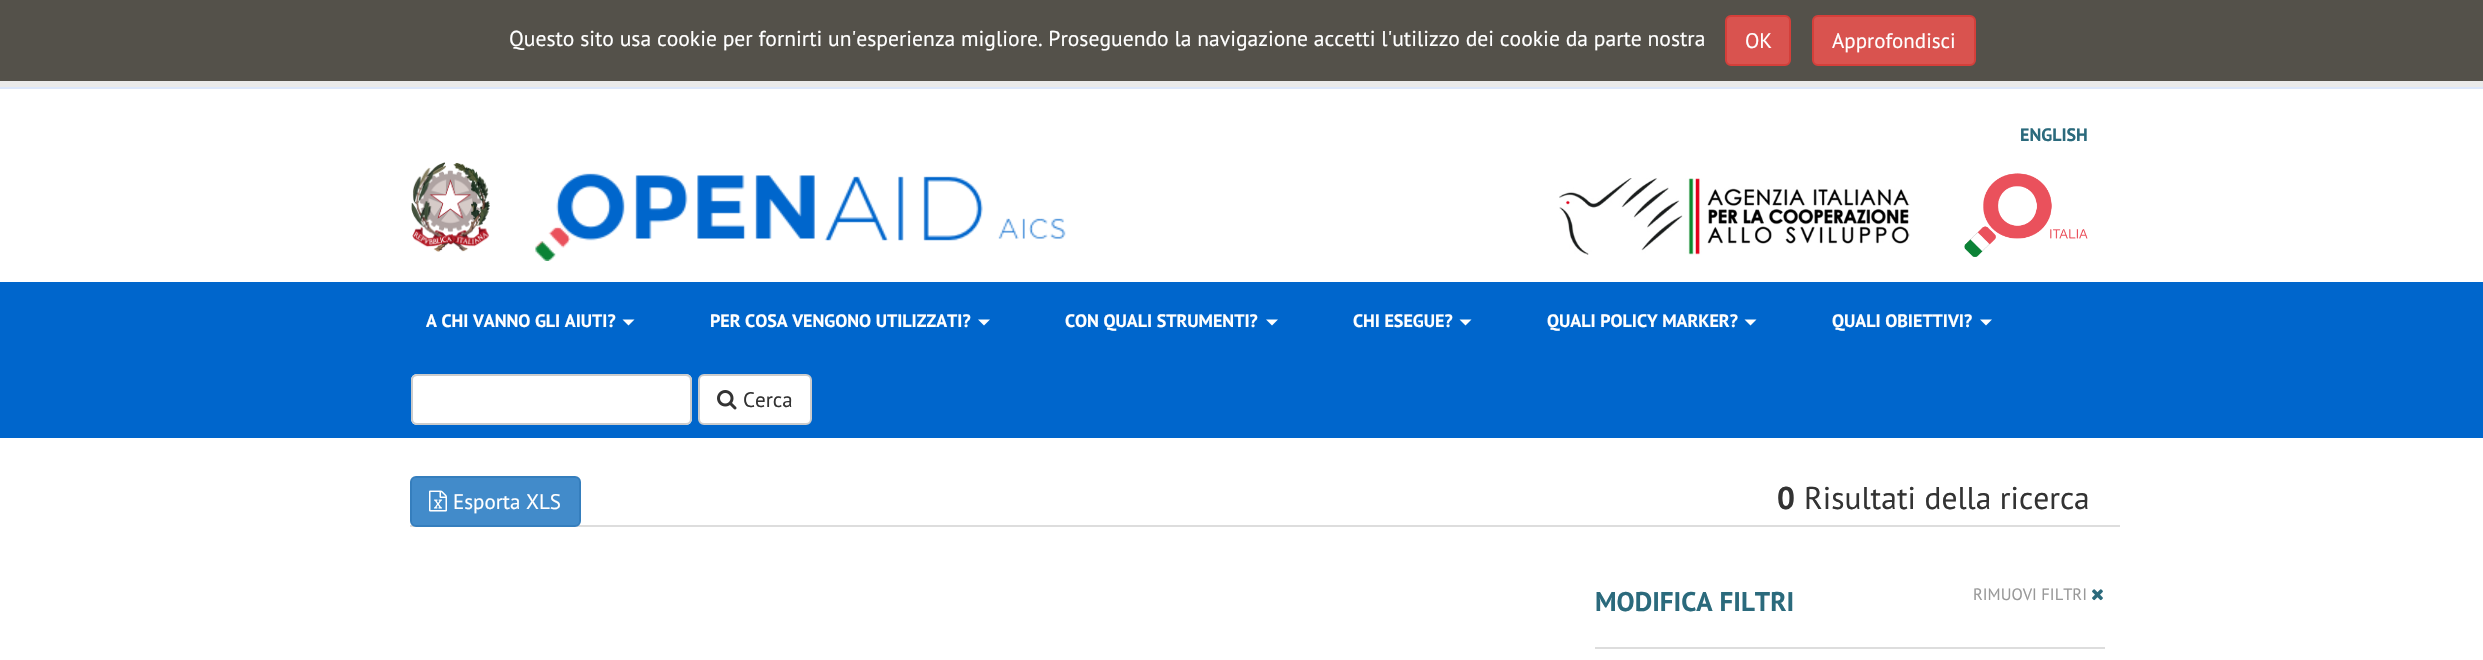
void draw(SkCanvas* canvas) {
	SkPaint paint;
	paint.setAntiAlias(true);
	auto svgPath = [&](const char* data, bool evenOdd = false) {
		SkPath result = *SkParsePath::FromSVGString(data);
		if (evenOdd) result.setFillType(SkPathFillType::kEvenOdd);
		return result;
	};
	canvas->clear(0xffffffff);
	paint.setColor(0xff54514a);
	canvas->drawRect(SkRect::MakeXYWH(0, 0, 2483, 81), paint);
	SkFont f1(fontMgr->matchFamilyStyle("PT Sans", SkFontStyle::Normal()), 21.6);
	f1.setSubpixel(true);
	paint.setColor(0xffffffff);
	canvas->drawString("Questo sito usa cookie per fornirti un'esperienza migliore. Proseguendo la navigazione accetti l'utilizzo dei cookie da parte nostra", 509, 46, f1, paint);
	paint.setColor(0xffd9534f);
	canvas->drawRoundRect(SkRect::MakeXYWH(1726, 16, 64, 49), 5, 5, paint);
	paint.setStroke(true);
	paint.setStrokeWidth(2);
	paint.setColor(0xffd43f3a);
	canvas->drawRoundRect(SkRect::MakeXYWH(1726, 16, 64, 49), 5, 5, paint);
	SkFont f2(fontMgr->matchFamilyStyle("PT Sans", SkFontStyle::Normal()), 21);
	f2.setSubpixel(true);
	paint.setStroke(false);
	paint.setColor(0xffffffff);
	canvas->drawString("OK", 1745, 48, f2, paint);
	paint.setColor(0xffd9534f);
	canvas->drawRoundRect(SkRect::MakeXYWH(1813, 16, 162, 49), 5, 5, paint);
	paint.setStroke(true);
	paint.setColor(0xffd43f3a);
	canvas->drawRoundRect(SkRect::MakeXYWH(1813, 16, 162, 49), 5, 5, paint);
	paint.setStroke(false);
	paint.setColor(0xffffffff);
	canvas->drawString("Approfondisci", 1832, 48, f2, paint);
	paint.setColor(0xffeaeaea);
	canvas->drawRect(SkRect::MakeXYWH(0, 81, 2483, 6), paint);
	paint.setColor(0xffdce7fb);
	canvas->drawRect(SkRect::MakeXYWH(0, 87, 2483, 2), paint);
	SkFont f3(fontMgr->matchFamilyStyle("PT Sans", SkFontStyle::Bold()), 18);
	f3.setSubpixel(true);
	paint.setColor(0xff2b6a7c);
	canvas->drawString("ENGLISH", 2020, 141, f3, paint);
	canvas->drawImageRect(SkImages::DeferredFromEncodedData(SkData::MakeFromFileName("img1.png")), SkRect::MakeXYWH(411, 162, 79, 90), SkSamplingOptions());
	canvas->drawImageRect(SkImages::DeferredFromEncodedData(SkData::MakeFromFileName("img2.png")), SkRect::MakeXYWH(535, 173, 531, 88), SkSamplingOptions());
	canvas->drawImageRect(SkImages::DeferredFromEncodedData(SkData::MakeFromFileName("img3.png")), SkRect::MakeXYWH(1559, 178, 351, 77), SkSamplingOptions());
	canvas->drawImageRect(SkImages::DeferredFromEncodedData(SkData::MakeFromFileName("img4.png")), SkRect::MakeXYWH(1964, 173, 124, 84), SkSamplingOptions());
	paint.setColor(0xff0066cc);
	canvas->drawRect(SkRect::MakeXYWH(0, 282, 2483, 156), paint);
	paint.setColor(0xffffffff);
	canvas->drawString("A CHI VANNO GLI AIUTI?", 426, 327, f3, paint);
	canvas->drawPath(svgPath("M622.5 319.5H634.5L628.5 325.5Z"), paint);
	canvas->drawString("PER COSA VENGONO UTILIZZATI?", 710, 327, f3, paint);
	canvas->drawPath(svgPath("M978 319.5H990L984 325.5Z"), paint);
	canvas->drawString("CON QUALI STRUMENTI?", 1065, 327, f3, paint);
	canvas->drawPath(svgPath("M1266 319.5H1278L1272 325.5Z"), paint);
	canvas->drawString("CHI ESEGUE?", 1353, 327, f3, paint);
	canvas->drawPath(svgPath("M1459.5 319.5H1471.5L1465.5 325.5Z"), paint);
	canvas->drawString("QUALI POLICY MARKER?", 1547, 327, f3, paint);
	canvas->drawPath(svgPath("M1744.5 319.5H1756.5L1750.5 325.5Z"), paint);
	canvas->drawString("QUALI OBIETTIVI?", 1832, 327, f3, paint);
	canvas->drawPath(svgPath("M1980 319.5H1992L1986 325.5Z"), paint);
	canvas->drawRoundRect(SkRect::MakeXYWH(411, 374, 281, 51), 6, 6, paint);
	paint.setColor(0xffececec);
	canvas->drawPath(svgPath("M417 376H686C688 376 690 379 690 381V380C690 377 688 375 685 375H418C416 375 414 376 413 378C414 377 416 376 417 376Z"), paint);
	paint.setStroke(true);
	paint.setColor(0xffcccccc);
	canvas->drawRoundRect(SkRect::MakeXYWH(412, 375, 279, 49), 5, 5, paint);
	paint.setStroke(false);
	paint.setColor(0xffffffff);
	canvas->drawRoundRect(SkRect::MakeXYWH(699, 375, 112, 49), 5, 5, paint);
	paint.setStroke(true);
	paint.setColor(0xffcccccc);
	canvas->drawRoundRect(SkRect::MakeXYWH(699, 375, 112, 49), 5, 5, paint);
	canvas->drawImageRect(SkImages::DeferredFromEncodedData(SkData::MakeFromFileName("img5.png")), SkRect::MakeXYWH(717, 390, 20, 20), SkSamplingOptions());
	paint.setStroke(false);
	paint.setColor(0xff333333);
	canvas->drawString("Cerca", 743, 407, f2, paint);
	paint.setColor(0xffdddddd);
	canvas->drawRect(SkRect::MakeXYWH(410, 525, 1710, 2), paint);
	paint.setColor(0xff428bca);
	canvas->drawRoundRect(SkRect::MakeXYWH(411, 477, 169, 49), 5, 5, paint);
	paint.setStroke(true);
	paint.setColor(0xff357ebd);
	canvas->drawRoundRect(SkRect::MakeXYWH(411, 477, 169, 49), 5, 5, paint);
	canvas->drawImageRect(SkImages::DeferredFromEncodedData(SkData::MakeFromFileName("img6.png")), SkRect::MakeXYWH(429, 490, 18, 22), SkSamplingOptions());
	paint.setStroke(false);
	paint.setColor(0xffffffff);
	canvas->drawString("Esporta XLS", 453, 509, f2, paint);
	SkFont f4(fontMgr->matchFamilyStyle("PT Sans", SkFontStyle::Bold()), 31.5);
	f4.setSubpixel(true);
	paint.setColor(0xff333333);
	canvas->drawString("0", 1777, 509, f4, paint);
	SkFont f5(fontMgr->matchFamilyStyle("PT Sans", SkFontStyle::Normal()), 31.5);
	f5.setSubpixel(true);
	canvas->drawString("Risultati della ricerca", 1804, 509, f5, paint);
	paint.setColor(0xffdddddd);
	canvas->drawRect(SkRect::MakeXYWH(1595, 647, 510, 2), paint);
	SkFont f6(fontMgr->matchFamilyStyle("PT Sans", SkFontStyle::Bold()), 27);
	f6.setSubpixel(true);
	paint.setColor(0xff2b6a7c);
	canvas->drawString("MODIFICA FILTRI", 1595, 611, f6, paint);
	SkFont f7(fontMgr->matchFamilyStyle("PT Sans", SkFontStyle::Normal()), 16.5);
	f7.setSubpixel(true);
	paint.setColor(0xff999999);
	canvas->drawString("RIMUOVI FILTRI", 1973, 600, f7, paint);
	canvas->drawImageRect(SkImages::DeferredFromEncodedData(SkData::MakeFromFileName("img7.png")), SkRect::MakeXYWH(2092, 589, 11, 12), SkSamplingOptions());
}
